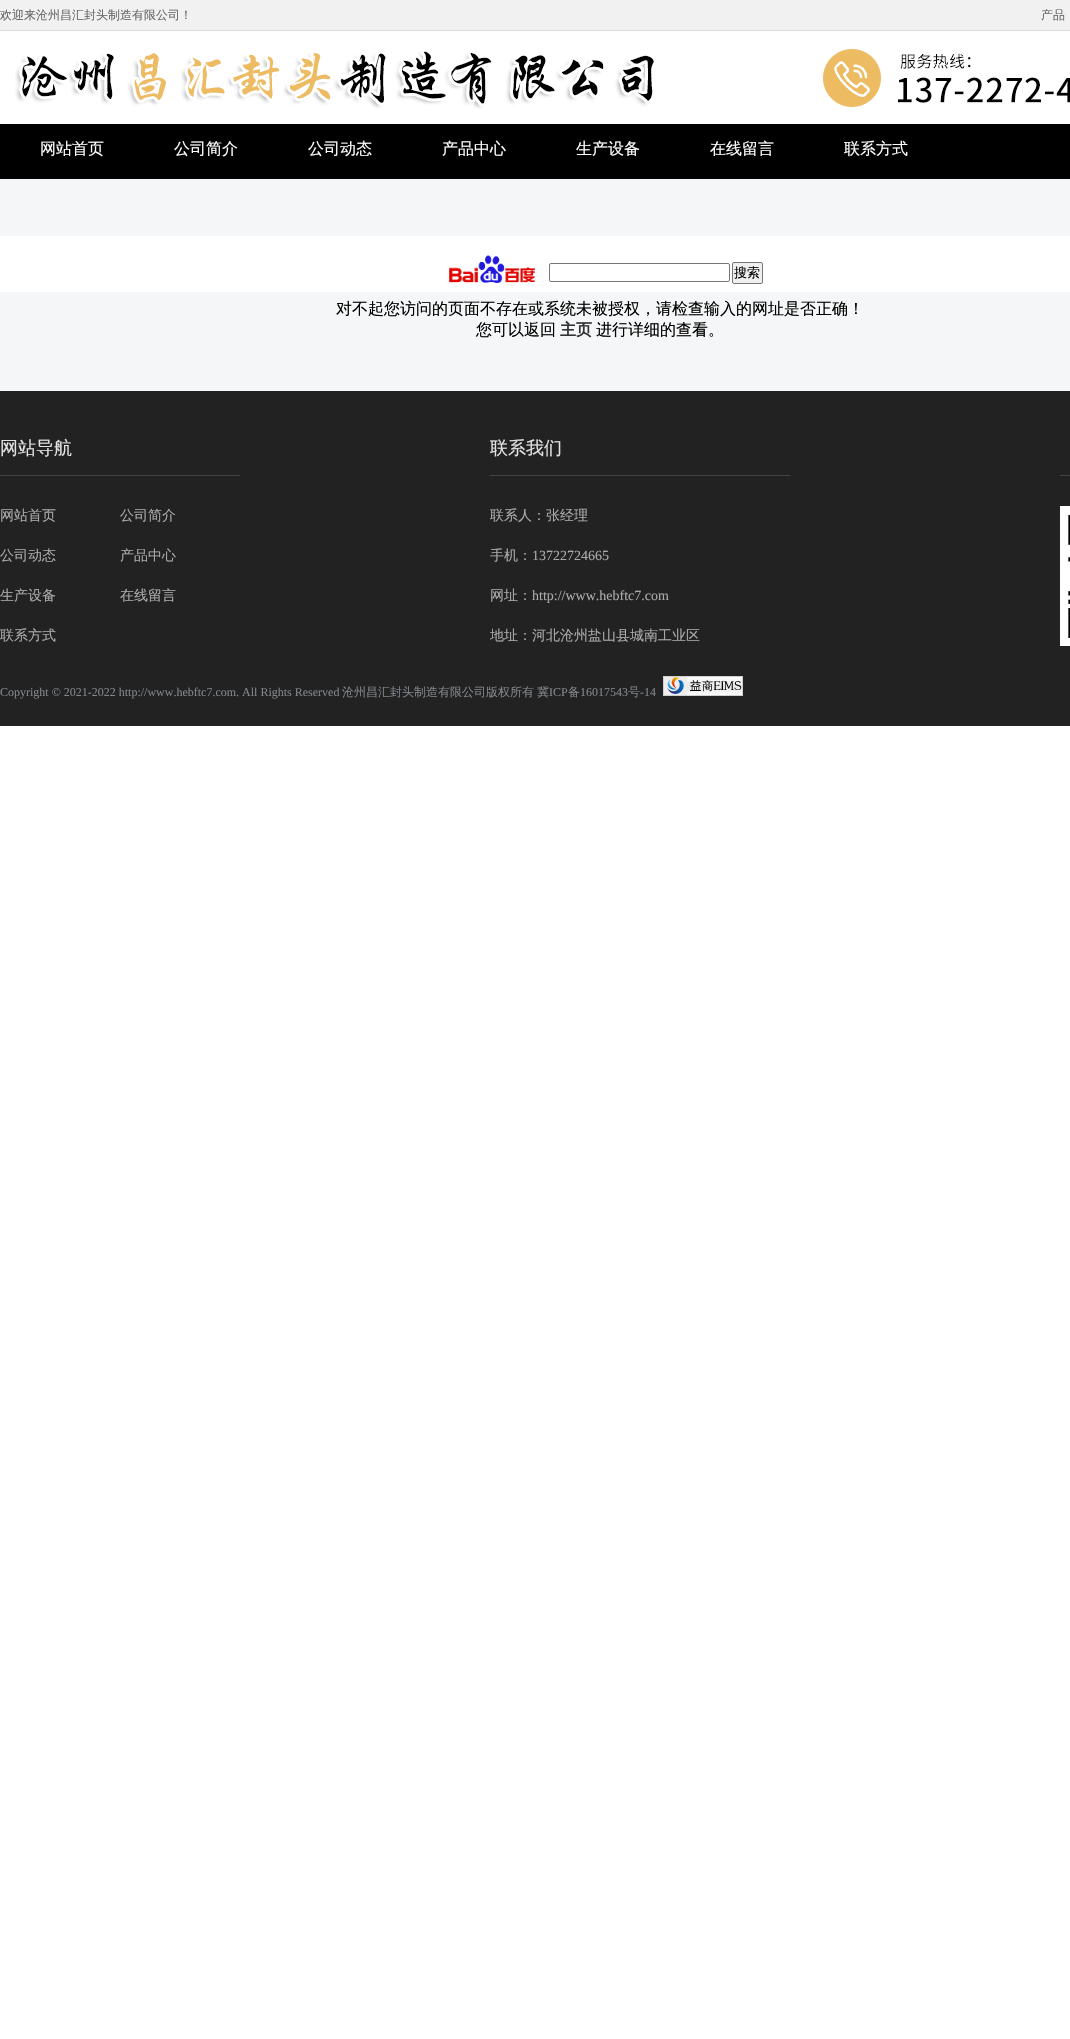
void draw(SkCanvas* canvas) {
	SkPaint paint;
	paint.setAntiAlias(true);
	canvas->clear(0xffffffff);
	paint.setColor(0xfff5f6f7);
	canvas->drawRect(SkRect::MakeXYWH(0, 179, 1070, 212), paint);
	paint.setColor(0xfff1f1f1);
	canvas->drawRect(SkRect::MakeXYWH(0, 0, 1070, 30), paint);
	paint.setColor(0xffdddddd);
	canvas->drawRect(SkRect::MakeXYWH(0, 30, 1070, 1), paint);
	SkFont f1(fontMgr->matchFamilyStyle("WenQuanYi Zen Hei", SkFontStyle(500, SkFontStyle::kNormal_Width, SkFontStyle::kUpright_Slant)), 12);
	f1.setSubpixel(true);
	paint.setColor(0xff666666);
	canvas->drawString("欢迎来沧州昌汇封头制造有限公司！", 0, 19, f1, paint);
	canvas->drawString("产品", 1041, 19, f1, paint);
	canvas->drawImageRect(SkImages::DeferredFromEncodedData(SkData::MakeFromFileName("img1.png")), SkRect::MakeXYWH(15, 49, 1055, 60), SkSamplingOptions());
	paint.setColor(0xff000000);
	canvas->drawRect(SkRect::MakeXYWH(0, 124, 1070, 55), paint);
	SkFont f2(fontMgr->matchFamilyStyle("WenQuanYi Zen Hei", SkFontStyle(500, SkFontStyle::kNormal_Width, SkFontStyle::kUpright_Slant)), 16);
	f2.setSubpixel(true);
	paint.setColor(0xffffffff);
	canvas->drawString("网站首页", 40, 154, f2, paint);
	canvas->drawString("公司简介", 174, 154, f2, paint);
	canvas->drawString("公司动态", 308, 154, f2, paint);
	canvas->drawString("产品中心", 442, 154, f2, paint);
	canvas->drawString("生产设备", 576, 154, f2, paint);
	canvas->drawString("在线留言", 710, 154, f2, paint);
	canvas->drawString("联系方式", 844, 154, f2, paint);
	canvas->drawRect(SkRect::MakeXYWH(0, 236, 1070, 56), paint);
	canvas->drawImageRect(SkImages::DeferredFromEncodedData(SkData::MakeFromFileName("img2.png")), SkRect::MakeXYWH(449, 255, 86, 29), SkSamplingOptions());
	paint.setStroke(true);
	paint.setStrokeWidth(1);
	paint.setColor(0xff767676);
	canvas->drawRoundRect(SkRect::MakeXYWH(549.5, 263.5, 180, 18), 1.5, 1.5, paint);
	paint.setStroke(false);
	paint.setColor(0xffefefef);
	canvas->drawRoundRect(SkRect::MakeXYWH(732.5, 262.5, 30, 21), 1.5, 1.5, paint);
	paint.setStroke(true);
	paint.setColor(0xff767676);
	canvas->drawRoundRect(SkRect::MakeXYWH(732.5, 262.5, 30, 21), 1.5, 1.5, paint);
	SkFont f3(fontMgr->matchFamilyStyle("WenQuanYi Zen Hei", SkFontStyle(500, SkFontStyle::kNormal_Width, SkFontStyle::kUpright_Slant)), 13);
	f3.setSubpixel(true);
	paint.setStroke(false);
	paint.setColor(0xff000000);
	canvas->drawString("搜索", 734, 277, f3, paint);
	canvas->drawString("对不起您访问的页面不存在或系统未被授权，请检查输入的网址是否正确！", 336, 314, f2, paint);
	canvas->drawString("您可以返回", 476, 335, f2, paint);
	SkFont f4(fontMgr->matchFamilyStyle("WenQuanYi Zen Hei", SkFontStyle::Bold()), 16);
	f4.setSubpixel(true);
	paint.setColor(0xff333333);
	canvas->drawString("主页", 560, 335, f4, paint);
	paint.setColor(0xff000000);
	canvas->drawString("进行详细的查看。", 596, 335, f2, paint);
	paint.setColor(0xff222222);
	canvas->drawRect(SkRect::MakeXYWH(0, 391, 1070, 335), paint);
	paint.setColor(0xff444444);
	canvas->drawRect(SkRect::MakeXYWH(0, 475, 240, 1), paint);
	SkFont f5(fontMgr->matchFamilyStyle("WenQuanYi Zen Hei", SkFontStyle(500, SkFontStyle::kNormal_Width, SkFontStyle::kUpright_Slant)), 18);
	f5.setSubpixel(true);
	paint.setColor(0xffe2e2e2);
	canvas->drawString("网站导航", 0, 454, f5, paint);
	SkFont f6(fontMgr->matchFamilyStyle("WenQuanYi Zen Hei", SkFontStyle(500, SkFontStyle::kNormal_Width, SkFontStyle::kUpright_Slant)), 14);
	f6.setSubpixel(true);
	paint.setColor(0xffaaaaaa);
	canvas->drawString("网站首页", 0, 520, f6, paint);
	canvas->drawString("公司简介", 120, 520, f6, paint);
	canvas->drawString("公司动态", 0, 560, f6, paint);
	canvas->drawString("产品中心", 120, 560, f6, paint);
	canvas->drawString("生产设备", 0, 600, f6, paint);
	canvas->drawString("在线留言", 120, 600, f6, paint);
	canvas->drawString("联系方式", 0, 640, f6, paint);
	paint.setColor(0xff444444);
	canvas->drawRect(SkRect::MakeXYWH(490, 475, 300, 1), paint);
	paint.setColor(0xffe2e2e2);
	canvas->drawString("联系我们", 490, 454, f5, paint);
	paint.setColor(0xffaaaaaa);
	canvas->drawString("联系人：张经理", 490, 520, f6, paint);
	canvas->drawString("手机：", 490, 560, f6, paint);
	SkFont f7(fontMgr->matchFamilyStyle("Liberation Serif", SkFontStyle::Normal()), 14);
	f7.setSubpixel(true);
	canvas->drawString("13722724665", 532, 560, f7, paint);
	canvas->drawString("网址：", 490, 600, f6, paint);
	canvas->drawString("http://www.hebftc7.com", 532, 600, f7, paint);
	canvas->drawString("地址：河北沧州盐山县城南工业区", 490, 640, f6, paint);
	paint.setColor(0xff444444);
	canvas->drawRect(SkRect::MakeXYWH(1060, 475, 10, 1), paint);
	canvas->drawImageRect(SkImages::DeferredFromEncodedData(SkData::MakeFromFileName("img3.png")), SkRect::MakeXYWH(1060, 506, 10, 140), SkSamplingOptions());
	SkFont f8(fontMgr->matchFamilyStyle("Liberation Serif", SkFontStyle::Normal()), 12);
	f8.setSubpixel(true);
	paint.setColor(0xff80868b);
	canvas->drawString("Copyright © 2021-2022 http://www.hebftc7.com. All Rights Reserved", 0, 696, f8, paint);
	canvas->drawString("沧州昌汇封头制造有限公司版权所有", 342, 696, f1, paint);
	canvas->drawString("冀", 537, 696, f1, paint);
	canvas->drawString("ICP", 549, 696, f8, paint);
	canvas->drawString("备", 568, 696, f1, paint);
	canvas->drawString("16017543", 580, 696, f8, paint);
	canvas->drawString("号", 628, 696, f1, paint);
	canvas->drawString("-14", 640, 696, f8, paint);
	canvas->drawImageRect(SkImages::DeferredFromEncodedData(SkData::MakeFromFileName("img4.png")), SkRect::MakeXYWH(663, 676, 80, 20), SkSamplingOptions());
}
